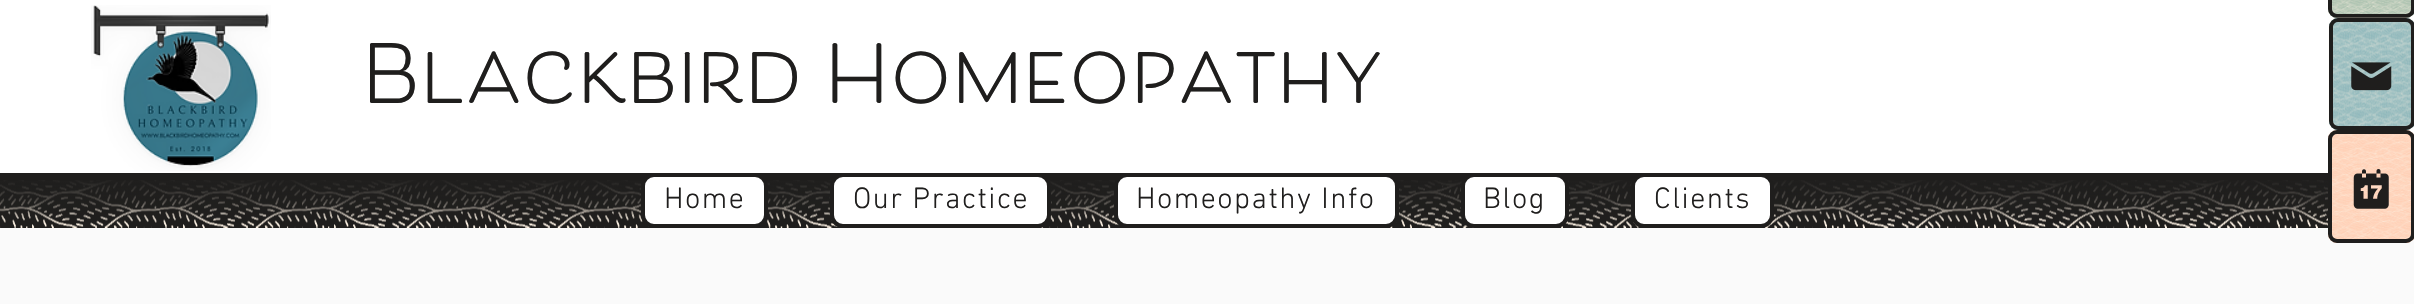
void draw(SkCanvas* canvas) {
	SkPaint paint;
	paint.setAntiAlias(true);
	auto spacedText = [&](const char* s, float x, float y, const SkFont& font, const SkPaint& ink, float letter, float word) {
		std::vector<SkGlyphID> glyphs(font.countText(s, strlen(s), SkTextEncoding::kUTF8));
		std::vector<float> xs(glyphs.size());
		font.textToGlyphs(s, strlen(s), SkTextEncoding::kUTF8, glyphs);
		font.getXPos(glyphs, xs, x);
		float extra = 0;
		for (size_t i = 0; i < glyphs.size(); i++) {
			xs[i] += extra;
			extra += letter + word * (glyphs[i] == font.unicharToGlyph(' '));
		}
		canvas->drawTextBlob(SkTextBlob::MakeFromPosHGlyphs(glyphs, xs, y, font), 0, 0, ink);
	};
	canvas->clear(0xfffafafa);
	paint.setColor(0xffffffff);
	canvas->drawRect(SkRect::MakeXYWH(0, 0, 2414, 173), paint);
	canvas->drawImageRect(SkImages::DeferredFromEncodedData(SkData::MakeFromFileName("img1.png")), SkRect::MakeXYWH(91, 5, 180, 166), SkSamplingOptions());
	SkFont f1(fontMgr->matchFamilyStyle("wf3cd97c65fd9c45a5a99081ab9", SkFontStyle::Bold()), 80);
	f1.setSubpixel(true);
	paint.setColor(0xff1f1e1d);
	canvas->drawString("Blackbird Homeopathy", 362, 103, f1, paint);
	canvas->drawRect(SkRect::MakeXYWH(0, 173, 2328, 55), paint);
	canvas->drawImageRect(SkImages::DeferredFromEncodedData(SkData::MakeFromFileName("img2.png")), SkRect::MakeXYWH(0, 180, 2328, 48), SkSamplingOptions());
	paint.setColor(0xffffffff);
	canvas->drawRoundRect(SkRect::MakeXYWH(643, 175, 123, 51), 11, 11, paint);
	paint.setStroke(true);
	paint.setStrokeWidth(4);
	paint.setColor(0xff1f1e1d);
	canvas->drawRoundRect(SkRect::MakeXYWH(643, 175, 123, 51), 11, 11, paint);
	SkFont f2(fontMgr->matchFamilyStyle("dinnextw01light", SkFontStyle(300, SkFontStyle::kNormal_Width, SkFontStyle::kUpright_Slant)), 30);
	f2.setSubpixel(true);
	paint.setStroke(false);
	spacedText("Home", 664, 208, f2, paint, 1.5, 0);
	paint.setColor(0xffffffff);
	canvas->drawRoundRect(SkRect::MakeXYWH(832, 175, 217, 51), 11, 11, paint);
	paint.setStroke(true);
	paint.setColor(0xff1f1e1d);
	canvas->drawRoundRect(SkRect::MakeXYWH(832, 175, 217, 51), 11, 11, paint);
	paint.setStroke(false);
	spacedText("Our Practice", 853, 208, f2, paint, 1.5, 0);
	paint.setColor(0xffffffff);
	canvas->drawRoundRect(SkRect::MakeXYWH(1116, 175, 281, 51), 11, 11, paint);
	paint.setStroke(true);
	paint.setColor(0xff1f1e1d);
	canvas->drawRoundRect(SkRect::MakeXYWH(1116, 175, 281, 51), 11, 11, paint);
	paint.setStroke(false);
	spacedText("Homeopathy Info", 1136, 208, f2, paint, 1.5, 0);
	paint.setColor(0xffffffff);
	canvas->drawRoundRect(SkRect::MakeXYWH(1463, 175, 104, 51), 11, 11, paint);
	paint.setStroke(true);
	paint.setColor(0xff1f1e1d);
	canvas->drawRoundRect(SkRect::MakeXYWH(1463, 175, 104, 51), 11, 11, paint);
	paint.setStroke(false);
	spacedText("Blog", 1483, 208, f2, paint, 1.5, 0);
	paint.setColor(0xffffffff);
	canvas->drawRoundRect(SkRect::MakeXYWH(1633, 175, 139, 51), 11, 11, paint);
	paint.setStroke(true);
	paint.setColor(0xff1f1e1d);
	canvas->drawRoundRect(SkRect::MakeXYWH(1633, 175, 139, 51), 11, 11, paint);
	paint.setStroke(false);
	spacedText("Clients", 1654, 208, f2, paint, 1.5, 0);
	paint.setColor(0xff6a9983);
	canvas->drawRoundRect(SkRect::MakeXYWH(2328, -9, 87, 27), 9, 9, paint);
	canvas->drawImageRect(SkImages::DeferredFromEncodedData(SkData::MakeFromFileName("img3.png")), SkRect::MakeXYWH(2328, 0, 86, 18), SkSamplingOptions());
	paint.setStroke(true);
	paint.setColor(0xff1f1e1d);
	canvas->drawRoundRect(SkRect::MakeXYWH(2330, -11, 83, 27), 7, 7, paint);
	paint.setStroke(false);
	paint.setColor(0xff026983);
	canvas->drawRoundRect(SkRect::MakeXYWH(2329, 18, 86, 112), 9, 9, paint);
	canvas->drawImageRect(SkImages::DeferredFromEncodedData(SkData::MakeFromFileName("img4.png")), SkRect::MakeXYWH(2328, 17, 86, 113), SkSamplingOptions());
	paint.setStroke(true);
	paint.setColor(0xff1f1e1d);
	canvas->drawRoundRect(SkRect::MakeXYWH(2331, 20, 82, 108), 7, 7, paint);
	canvas->drawImageRect(SkImages::DeferredFromEncodedData(SkData::MakeFromFileName("img5.png")), SkRect::MakeXYWH(2351, 62, 41, 29), SkSamplingOptions());
	paint.setStroke(false);
	paint.setColor(0xffffa077);
	canvas->drawRoundRect(SkRect::MakeXYWH(2328, 130, 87, 113), 9, 9, paint);
	canvas->drawImageRect(SkImages::DeferredFromEncodedData(SkData::MakeFromFileName("img6.png")), SkRect::MakeXYWH(2328, 130, 86, 113), SkSamplingOptions());
	paint.setStroke(true);
	paint.setColor(0xff1f1e1d);
	canvas->drawRoundRect(SkRect::MakeXYWH(2330, 132, 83, 109), 7, 7, paint);
	canvas->drawImageRect(SkImages::DeferredFromEncodedData(SkData::MakeFromFileName("img7.png")), SkRect::MakeXYWH(2353, 169, 36, 40), SkSamplingOptions());
}
